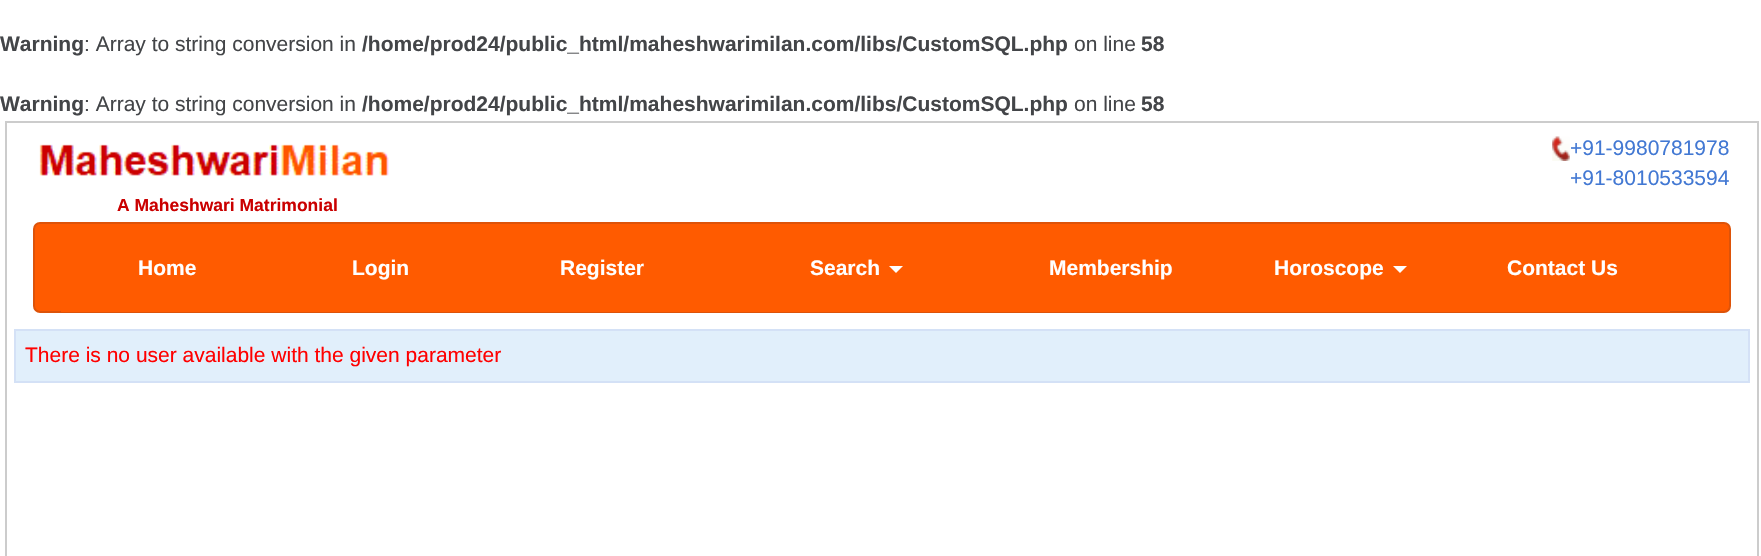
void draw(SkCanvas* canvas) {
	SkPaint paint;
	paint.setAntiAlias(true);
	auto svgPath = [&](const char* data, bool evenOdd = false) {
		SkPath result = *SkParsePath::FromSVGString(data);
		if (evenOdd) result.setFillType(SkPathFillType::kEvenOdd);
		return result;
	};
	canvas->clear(0xffffffff);
	SkFont f1(fontMgr->matchFamilyStyle("Liberation Sans", SkFontStyle::Bold()), 21);
	f1.setSubpixel(true);
	paint.setColor(0xff434548);
	canvas->drawString("Warning", 0, 51, f1, paint);
	SkFont f2(fontMgr->matchFamilyStyle("Liberation Sans", SkFontStyle::Normal()), 21);
	f2.setSubpixel(true);
	canvas->drawString(": Array to string conversion in", 84, 51, f2, paint);
	canvas->drawString("/home/prod24/public_html/maheshwarimilan.com/libs/CustomSQL.php", 362, 51, f1, paint);
	canvas->drawString("on line", 1074, 51, f2, paint);
	canvas->drawString("58", 1141, 51, f1, paint);
	canvas->drawString("Warning", 0, 111, f1, paint);
	canvas->drawString(": Array to string conversion in", 84, 111, f2, paint);
	canvas->drawString("/home/prod24/public_html/maheshwarimilan.com/libs/CustomSQL.php", 362, 111, f1, paint);
	canvas->drawString("on line", 1074, 111, f2, paint);
	canvas->drawString("58", 1141, 111, f1, paint);
	paint.setStroke(true);
	paint.setStrokeWidth(2);
	paint.setColor(0xffcccccc);
	canvas->drawRect(SkRect::MakeXYWH(6, 122, 1752, 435), paint);
	canvas->drawImageRect(SkImages::DeferredFromEncodedData(SkData::MakeFromFileName("img1.png")), SkRect::MakeXYWH(39, 144, 350, 32), SkSamplingOptions());
	canvas->drawImageRect(SkImages::DeferredFromEncodedData(SkData::MakeFromFileName("img2.png")), SkRect::MakeXYWH(1552, 136, 18, 25), SkSamplingOptions());
	paint.setStroke(false);
	paint.setColor(0xff4278d3);
	canvas->drawString("+91-9980781978", 1570, 155, f2, paint);
	canvas->drawString("+91-8010533594", 1570, 185, f2, paint);
	SkFont f3(fontMgr->matchFamilyStyle("Liberation Sans", SkFontStyle::Bold()), 17.5);
	f3.setSubpixel(true);
	paint.setColor(0xffca0000);
	canvas->drawString("A Maheshwari Matrimonial", 117, 211, f3, paint);
	paint.setColor(0xffff5b00);
	canvas->drawRoundRect(SkRect::MakeXYWH(34, 223, 1696, 89), 6, 6, paint);
	paint.setStroke(true);
	paint.setColor(0xffdd5309);
	canvas->drawRoundRect(SkRect::MakeXYWH(34, 223, 1696, 89), 6, 6, paint);
	paint.setStroke(false);
	paint.setColor(0xffff5b00);
	canvas->drawRect(SkRect::MakeXYWH(61, 311, 1609, 1), paint);
	paint.setColor(0xffffffff);
	canvas->drawString("Home", 138, 275, f1, paint);
	canvas->drawString("Login", 352, 275, f1, paint);
	canvas->drawString("Register", 560, 275, f1, paint);
	canvas->drawString("Search", 810, 275, f1, paint);
	canvas->drawPath(svgPath("M889 266H903L896 273Z"), paint);
	canvas->drawString("Membership", 1049, 275, f1, paint);
	canvas->drawString("Horoscope", 1274, 275, f1, paint);
	canvas->drawPath(svgPath("M1393 266H1407L1400 273Z"), paint);
	canvas->drawString("Contact Us", 1507, 275, f1, paint);
	paint.setColor(0xffe1effb);
	canvas->drawRect(SkRect::MakeXYWH(15, 330, 1734, 52), paint);
	paint.setStroke(true);
	paint.setColor(0xffd4e1f6);
	canvas->drawRect(SkRect::MakeXYWH(15, 330, 1734, 52), paint);
	paint.setStroke(false);
	paint.setColor(0xffff0000);
	canvas->drawString("There is no user available with the given parameter", 25, 362, f2, paint);
}
